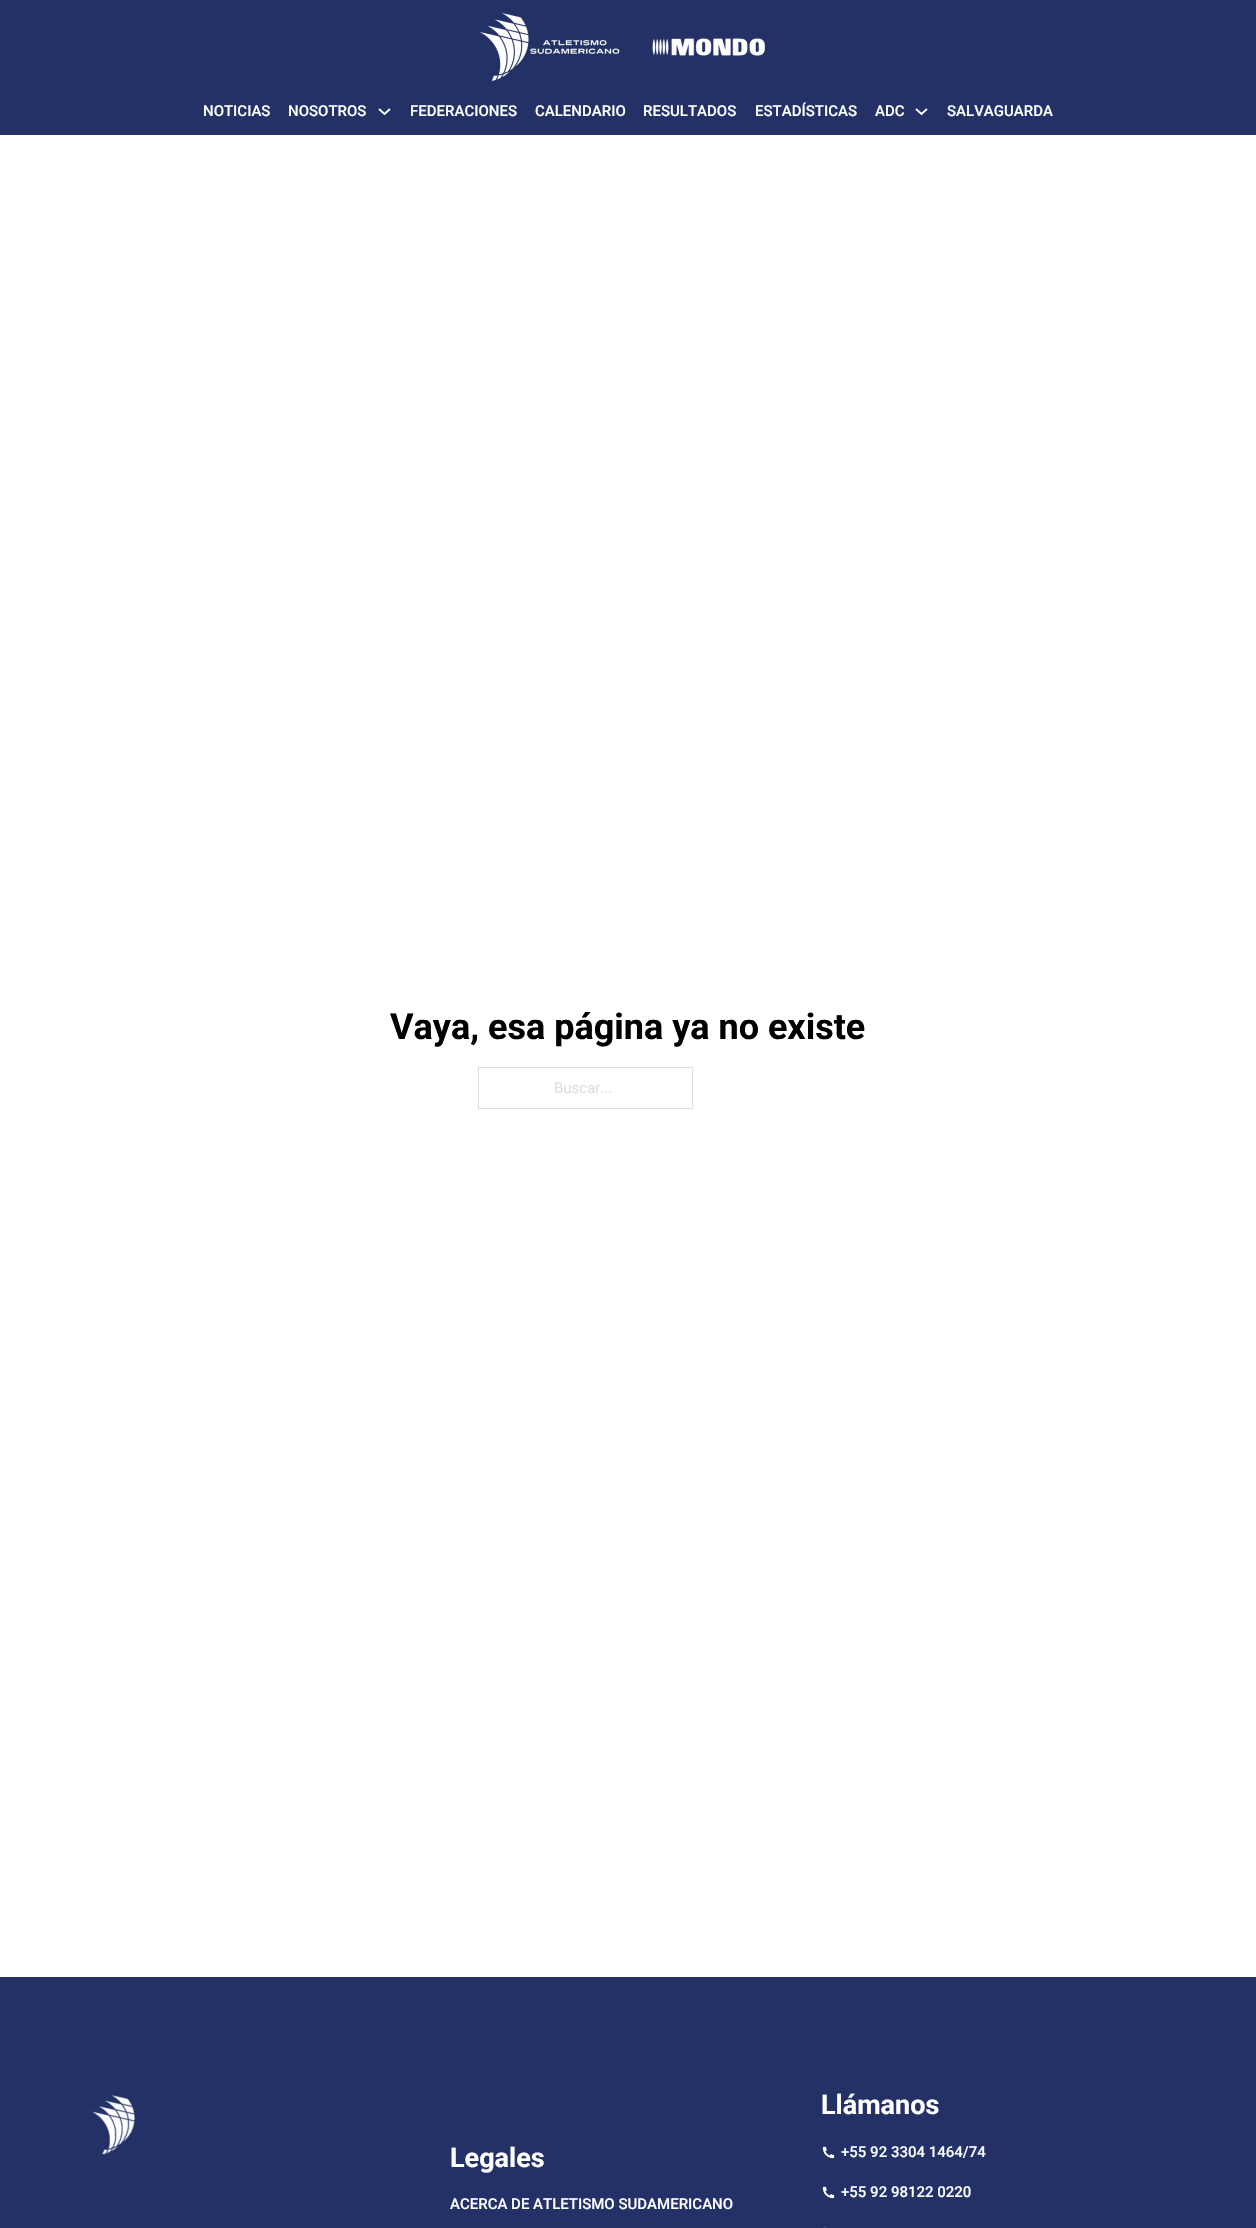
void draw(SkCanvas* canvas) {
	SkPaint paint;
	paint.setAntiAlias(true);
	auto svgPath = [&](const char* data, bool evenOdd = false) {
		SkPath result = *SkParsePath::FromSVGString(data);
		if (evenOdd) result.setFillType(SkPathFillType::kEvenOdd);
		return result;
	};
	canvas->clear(0xffffffff);
	paint.setColor(0xff233166);
	canvas->drawRect(SkRect::MakeXYWH(0, 0, 1256, 135), paint);
	canvas->drawImageRect(SkImages::DeferredFromEncodedData(SkData::MakeFromFileName("img1.png")), SkRect::MakeXYWH(480, 13, 140, 69), SkSamplingOptions());
	canvas->drawImageRect(SkImages::DeferredFromEncodedData(SkData::MakeFromFileName("img2.png")), SkRect::MakeXYWH(652, 38, 114, 20), SkSamplingOptions());
	SkFont f1(fontMgr->matchFamilyStyle("Roboto", SkFontStyle(500, SkFontStyle::kNormal_Width, SkFontStyle::kUpright_Slant)), 15);
	f1.setSubpixel(true);
	paint.setColor(0xffffffff);
	canvas->drawString("NOTICIAS", 203, 116, f1, paint);
	canvas->drawString("NOSOTROS", 288, 116, f1, paint);
	paint.setStroke(true);
	paint.setStrokeWidth(1.9);
	canvas->drawPath(svgPath("M379 109L384.5 114L390 109"), paint);
	paint.setStroke(false);
	canvas->drawString("FEDERACIONES", 410, 116, f1, paint);
	canvas->drawString("CALENDARIO", 535, 116, f1, paint);
	canvas->drawString("RESULTADOS", 643, 116, f1, paint);
	canvas->drawString("ESTADÍSTICAS", 755, 116, f1, paint);
	canvas->drawString("ADC", 875, 116, f1, paint);
	paint.setStroke(true);
	canvas->drawPath(svgPath("M916 109L921.5 114L927 109"), paint);
	paint.setStroke(false);
	canvas->drawString("SALVAGUARDA", 947, 116, f1, paint);
	SkFont f2(fontMgr->matchFamilyStyle("Roboto", SkFontStyle::Bold()), 36);
	f2.setSubpixel(true);
	paint.setColor(0xff000000);
	canvas->drawString("Vaya, esa página ya no existe", 390, 1039, f2, paint);
	paint.setStroke(true);
	paint.setStrokeWidth(1);
	paint.setColor(0xffdddedf);
	canvas->drawRect(SkRect::MakeXYWH(478.5, 1067.5, 214, 41), paint);
	SkFont f3(fontMgr->matchFamilyStyle("Roboto", SkFontStyle::Normal()), 15);
	f3.setSubpixel(true);
	paint.setStroke(false);
	canvas->drawString("Buscar...", 554, 1093, f3, paint);
	paint.setColor(0xff233166);
	canvas->drawRect(SkRect::MakeXYWH(0, 1977, 1256, 251), paint);
	canvas->drawImageRect(SkImages::DeferredFromEncodedData(SkData::MakeFromFileName("img3.png")), SkRect::MakeXYWH(92, 2094, 43, 61), SkSamplingOptions());
	SkFont f4(fontMgr->matchFamilyStyle("Roboto", SkFontStyle::Bold()), 27);
	f4.setSubpixel(true);
	paint.setColor(0xffffffff);
	canvas->drawString("Llámanos", 821, 2114, f4, paint);
	canvas->drawImageRect(SkImages::DeferredFromEncodedData(SkData::MakeFromFileName("img4.png")), SkRect::MakeXYWH(822, 2146, 13, 13), SkSamplingOptions());
	canvas->drawString("+55 92 3304 1464/74", 841, 2157, f1, paint);
	canvas->drawImageRect(SkImages::DeferredFromEncodedData(SkData::MakeFromFileName("img4.png")), SkRect::MakeXYWH(822, 2186, 13, 13), SkSamplingOptions());
	canvas->drawString("+55 92 98122 0220", 841, 2197, f1, paint);
	canvas->drawImageRect(SkImages::DeferredFromEncodedData(SkData::MakeFromFileName("img5.png")), SkRect::MakeXYWH(823, 2227, 3, 1), SkSamplingOptions());
	canvas->drawString("Legales", 450, 2167, f4, paint);
	canvas->drawString("ACERCA DE ATLETISMO SUDAMERICANO", 450, 2209, f1, paint);
}
